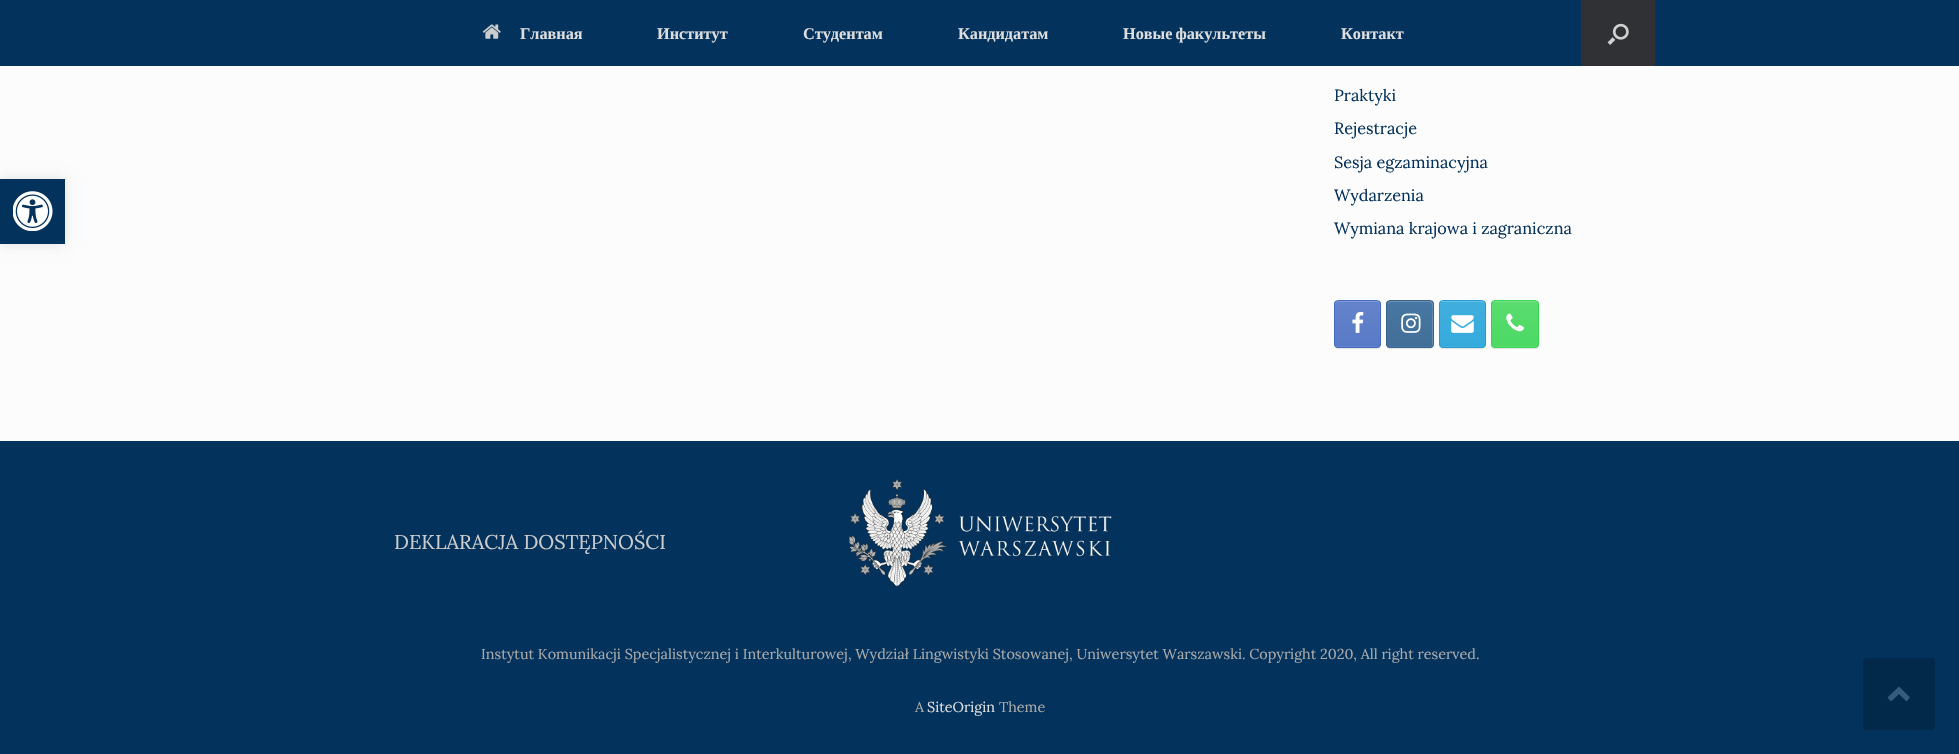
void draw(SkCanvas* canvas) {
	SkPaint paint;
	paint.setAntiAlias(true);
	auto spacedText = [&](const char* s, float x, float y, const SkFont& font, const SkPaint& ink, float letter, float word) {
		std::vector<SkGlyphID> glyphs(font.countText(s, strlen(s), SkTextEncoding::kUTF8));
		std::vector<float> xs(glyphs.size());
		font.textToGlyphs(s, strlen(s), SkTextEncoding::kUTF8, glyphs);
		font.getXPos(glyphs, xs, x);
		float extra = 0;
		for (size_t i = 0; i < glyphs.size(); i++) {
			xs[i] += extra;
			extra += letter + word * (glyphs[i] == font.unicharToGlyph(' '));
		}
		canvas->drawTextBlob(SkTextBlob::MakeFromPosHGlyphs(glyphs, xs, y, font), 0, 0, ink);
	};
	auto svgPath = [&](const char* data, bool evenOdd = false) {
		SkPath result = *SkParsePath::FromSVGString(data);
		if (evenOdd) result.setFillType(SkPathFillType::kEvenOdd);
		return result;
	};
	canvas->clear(0xff03325c);
	paint.setColor(0xfffcfcfc);
	canvas->drawRect(SkRect::MakeXYWH(0, 66, 1959, 375), paint);
	paint.setColor(0x1a000000);
	paint.setMaskFilter(SkMaskFilter::MakeBlur(kNormal_SkBlurStyle, 6));
	canvas->drawRect(SkRect::MakeXYWH(0, 179, 65, 65), paint);
	paint.setMaskFilter(nullptr);
	paint.setColor(0xff03325c);
	canvas->drawRect(SkRect::MakeXYWH(0, 179, 65, 65), paint);
	canvas->drawImageRect(SkImages::DeferredFromEncodedData(SkData::MakeFromFileName("img1.png")), SkRect::MakeXYWH(13, 191, 40, 40), SkSamplingOptions());
	canvas->drawImageRect(SkImages::DeferredFromEncodedData(SkData::MakeFromFileName("img2.png")), SkRect::MakeXYWH(482, 24, 19, 15), SkSamplingOptions());
	SkFont f1(fontMgr->matchFamilyStyle("Liberation Serif", SkFontStyle::Bold()), 16.25);
	f1.setSubpixel(true);
	paint.setColor(0xffdddddd);
	canvas->drawString("Главная", 520, 39, f1, paint);
	canvas->drawString("Институт", 657, 39, f1, paint);
	canvas->drawString("Студентам", 803, 39, f1, paint);
	canvas->drawString("Кандидатам", 958, 39, f1, paint);
	spacedText("Новые факультеты", 1123, 39, f1, paint, 0, -1);
	canvas->drawString("Контакт", 1341, 39, f1, paint);
	paint.setColor(0xff303134);
	canvas->drawRect(SkRect::MakeXYWH(1581, 0, 74, 66), paint);
	canvas->drawImageRect(SkImages::DeferredFromEncodedData(SkData::MakeFromFileName("img3.png")), SkRect::MakeXYWH(1607, 23, 22, 22), SkSamplingOptions());
	SkFont f2(fontMgr->matchFamilyStyle("Lora", SkFontStyle::Normal()), 16.25);
	f2.setSubpixel(true);
	paint.setColor(0xff03325c);
	canvas->drawString("Praktyki", 1334, 101, f2, paint);
	canvas->drawString("Rejestracje", 1334, 134, f2, paint);
	canvas->drawString("Sesja egzaminacyjna", 1334, 168, f2, paint);
	canvas->drawString("Wydarzenia", 1334, 201, f2, paint);
	canvas->drawString("Wymiana krajowa i zagraniczna", 1334, 234, f2, paint);
	paint.setColor(0x1a000000);
	paint.setMaskFilter(SkMaskFilter::MakeBlur(kNormal_SkBlurStyle, 0.5));
	canvas->drawRoundRect(SkRect::MakeXYWH(1334, 301, 47, 48), 4, 4, paint);
	paint.setMaskFilter(nullptr);
	canvas->save();
	canvas->clipPath(svgPath("M1338 300H1377C1379 300 1381 302 1381 304V344C1381 346 1379 348 1377 348H1338C1336 348 1334 346 1334 344V304C1334 302 1336 300 1338 300Z"), true);
	{
		const SkColor colors[] = {0xff597ac7, 0xff6483cb};
		const float stops[] = {0, 1};
		const SkPoint ends[] = {{1335, 346}, {1335, 301}};
		paint.setShader(SkGradientShader::MakeLinear(ends, colors, stops, 2, SkTileMode::kClamp));
		paint.setAlpha(255);
	}
	canvas->drawRect(SkRect::MakeXYWH(1334, 301, 47, 45), paint);
	{
		const SkColor colors[] = {0xff597ac7, 0xff6483cb};
		const float stops[] = {0, 1};
		const SkPoint ends[] = {{1335, 391}, {1335, 346}};
		paint.setShader(SkGradientShader::MakeLinear(ends, colors, stops, 2, SkTileMode::kClamp));
		paint.setAlpha(255);
	}
	canvas->drawRect(SkRect::MakeXYWH(1334, 346, 47, 2), paint);
	canvas->restore();
	paint.setShader(nullptr);
	paint.setColor(0xff839cd5);
	canvas->drawPath(svgPath("M1338 302H1378C1379 302 1380 304 1380 305C1380 299 1376 301 1371 301H1344C1339 301 1335 299 1335 305C1335 304 1336 302 1338 302Z"), paint);
	paint.setStroke(true);
	paint.setStrokeWidth(1);
	paint.setColor(0xff466bc1);
	canvas->drawRoundRect(SkRect::MakeXYWH(1334.5, 300.5, 46, 47), 3.5, 3.5, paint);
	canvas->drawImageRect(SkImages::DeferredFromEncodedData(SkData::MakeFromFileName("img4.png")), SkRect::MakeXYWH(1352, 312, 12, 21), SkSamplingOptions());
	paint.setStroke(false);
	paint.setColor(0x1a000000);
	paint.setMaskFilter(SkMaskFilter::MakeBlur(kNormal_SkBlurStyle, 0.5));
	canvas->drawRoundRect(SkRect::MakeXYWH(1386, 301, 48, 48), 4, 4, paint);
	paint.setMaskFilter(nullptr);
	canvas->save();
	canvas->clipPath(svgPath("M1390 300H1430C1432 300 1434 302 1434 304V344C1434 346 1432 348 1430 348H1390C1388 348 1386 346 1386 344V304C1386 302 1388 300 1390 300Z"), true);
	{
		const SkColor colors[] = {0xff426f98, 0xff4777a3};
		const float stops[] = {0, 1};
		const SkPoint ends[] = {{1388, 346}, {1388, 301}};
		paint.setShader(SkGradientShader::MakeLinear(ends, colors, stops, 2, SkTileMode::kClamp));
		paint.setAlpha(255);
	}
	canvas->drawRect(SkRect::MakeXYWH(1386, 301, 48, 45), paint);
	{
		const SkColor colors[] = {0xff426f98, 0xff4777a3};
		const float stops[] = {0, 1};
		const SkPoint ends[] = {{1388, 391}, {1388, 346}};
		paint.setShader(SkGradientShader::MakeLinear(ends, colors, stops, 2, SkTileMode::kClamp));
		paint.setAlpha(255);
	}
	canvas->drawRect(SkRect::MakeXYWH(1386, 346, 48, 2), paint);
	canvas->restore();
	paint.setShader(nullptr);
	paint.setColor(0x33ffffff);
	canvas->drawPath(svgPath("M1390 302H1430C1434 303 1432 316 1432 318V346C1433 345 1433 344 1433 344V304C1433 302 1432 301 1430 301H1390C1389 301 1388 302 1388 304V305C1388 304 1389 302 1390 302Z"), paint);
	paint.setStroke(true);
	paint.setColor(0xff3a6286);
	canvas->drawRoundRect(SkRect::MakeXYWH(1386.5, 300.5, 47, 47), 3.5, 3.5, paint);
	canvas->drawImageRect(SkImages::DeferredFromEncodedData(SkData::MakeFromFileName("img5.png")), SkRect::MakeXYWH(1401, 313, 20, 20), SkSamplingOptions());
	paint.setStroke(false);
	paint.setColor(0x1a000000);
	paint.setMaskFilter(SkMaskFilter::MakeBlur(kNormal_SkBlurStyle, 0.5));
	canvas->drawRoundRect(SkRect::MakeXYWH(1439, 301, 47, 48), 4, 4, paint);
	paint.setMaskFilter(nullptr);
	canvas->save();
	canvas->clipPath(svgPath("M1443 300H1482C1484 300 1486 302 1486 304V344C1486 346 1484 348 1482 348H1443C1441 348 1439 346 1439 344V304C1439 302 1441 300 1443 300Z"), true);
	{
		const SkColor colors[] = {0xff34aadc, 0xff41afde};
		const float stops[] = {0, 1};
		const SkPoint ends[] = {{1440, 346}, {1440, 301}};
		paint.setShader(SkGradientShader::MakeLinear(ends, colors, stops, 2, SkTileMode::kClamp));
		paint.setAlpha(255);
	}
	canvas->drawRect(SkRect::MakeXYWH(1439, 301, 47, 45), paint);
	{
		const SkColor colors[] = {0xff34aadc, 0xff41afde};
		const float stops[] = {0, 1};
		const SkPoint ends[] = {{1440, 391}, {1440, 346}};
		paint.setShader(SkGradientShader::MakeLinear(ends, colors, stops, 2, SkTileMode::kClamp));
		paint.setAlpha(255);
	}
	canvas->drawRect(SkRect::MakeXYWH(1439, 346, 47, 2), paint);
	canvas->restore();
	paint.setShader(nullptr);
	paint.setColor(0xff67bfe5);
	canvas->drawPath(svgPath("M1442 302H1482C1484 302 1485 304 1485 305C1485 299 1481 301 1476 301H1449C1444 301 1440 299 1440 305C1440 304 1441 302 1442 302Z"), paint);
	paint.setStroke(true);
	paint.setColor(0xff249ed2);
	canvas->drawRoundRect(SkRect::MakeXYWH(1439.5, 300.5, 46, 47), 3.5, 3.5, paint);
	canvas->drawImageRect(SkImages::DeferredFromEncodedData(SkData::MakeFromFileName("img6.png")), SkRect::MakeXYWH(1451, 315, 23, 18), SkSamplingOptions());
	paint.setStroke(false);
	paint.setColor(0x1a000000);
	paint.setMaskFilter(SkMaskFilter::MakeBlur(kNormal_SkBlurStyle, 0.5));
	canvas->drawRoundRect(SkRect::MakeXYWH(1491, 301, 48, 48), 4, 4, paint);
	paint.setMaskFilter(nullptr);
	canvas->save();
	canvas->clipPath(svgPath("M1495 300H1535C1537 300 1539 302 1539 304V344C1539 346 1537 348 1535 348H1495C1493 348 1491 346 1491 344V304C1491 302 1493 300 1495 300Z"), true);
	{
		const SkColor colors[] = {0xff4cd964, 0xff59dc6f};
		const float stops[] = {0, 1};
		const SkPoint ends[] = {{1493, 346}, {1493, 301}};
		paint.setShader(SkGradientShader::MakeLinear(ends, colors, stops, 2, SkTileMode::kClamp));
		paint.setAlpha(255);
	}
	canvas->drawRect(SkRect::MakeXYWH(1491, 301, 48, 45), paint);
	{
		const SkColor colors[] = {0xff4cd964, 0xff59dc6f};
		const float stops[] = {0, 1};
		const SkPoint ends[] = {{1493, 391}, {1493, 346}};
		paint.setShader(SkGradientShader::MakeLinear(ends, colors, stops, 2, SkTileMode::kClamp));
		paint.setAlpha(255);
	}
	canvas->drawRect(SkRect::MakeXYWH(1491, 346, 48, 2), paint);
	canvas->restore();
	paint.setShader(nullptr);
	paint.setColor(0xff7ae38c);
	canvas->drawPath(svgPath("M1495 302H1535C1536 302 1538 304 1538 305V304C1538 302 1537 301 1536 301H1496C1494 301 1493 302 1493 303Z"), paint);
	paint.setStroke(true);
	paint.setColor(0xff37d552);
	canvas->drawRoundRect(SkRect::MakeXYWH(1491.5, 300.5, 47, 47), 3.5, 3.5, paint);
	canvas->drawImageRect(SkImages::DeferredFromEncodedData(SkData::MakeFromFileName("img7.png")), SkRect::MakeXYWH(1506, 313, 18, 19), SkSamplingOptions());
	SkFont f3(fontMgr->matchFamilyStyle("Lora", SkFontStyle::Normal()), 20);
	f3.setSubpixel(true);
	paint.setStroke(false);
	paint.setColor(0xffcccccc);
	canvas->drawString("DEKLARACJA DOSTĘPNOŚCI", 394, 549, f3, paint);
	canvas->drawImageRect(SkImages::DeferredFromEncodedData(SkData::MakeFromFileName("img8.png")), SkRect::MakeXYWH(848, 478, 264, 109), SkSamplingOptions());
	SkFont f4(fontMgr->matchFamilyStyle("Lora", SkFontStyle::Normal()), 14.38);
	f4.setSubpixel(true);
	paint.setColor(0xffaaaaaa);
	canvas->drawString("Instytut Komunikacji Specjalistycznej i Interkulturowej, Wydział Lingwistyki Stosowanej, Uniwersytet Warszawski. Copyright 2020, All right reserved.", 481, 659, f4, paint);
	canvas->drawString("A", 915, 712, f4, paint);
	paint.setColor(0xffdddddd);
	canvas->drawString("SiteOrigin", 927, 712, f4, paint);
	paint.setColor(0xffaaaaaa);
	canvas->drawString("Theme", 999, 712, f4, paint);
	paint.setColor(0xff02284a);
	canvas->drawRoundRect(SkRect::MakeXYWH(1863, 658, 72, 72), 4, 4, paint);
	paint.setColor(0xff355b7d);
	canvas->drawPath(svgPath("M1910 697.5L1899 686.5L1887.5 697.5L1891 701.5L1899 694L1906.5 701.5Z"), paint);
}
